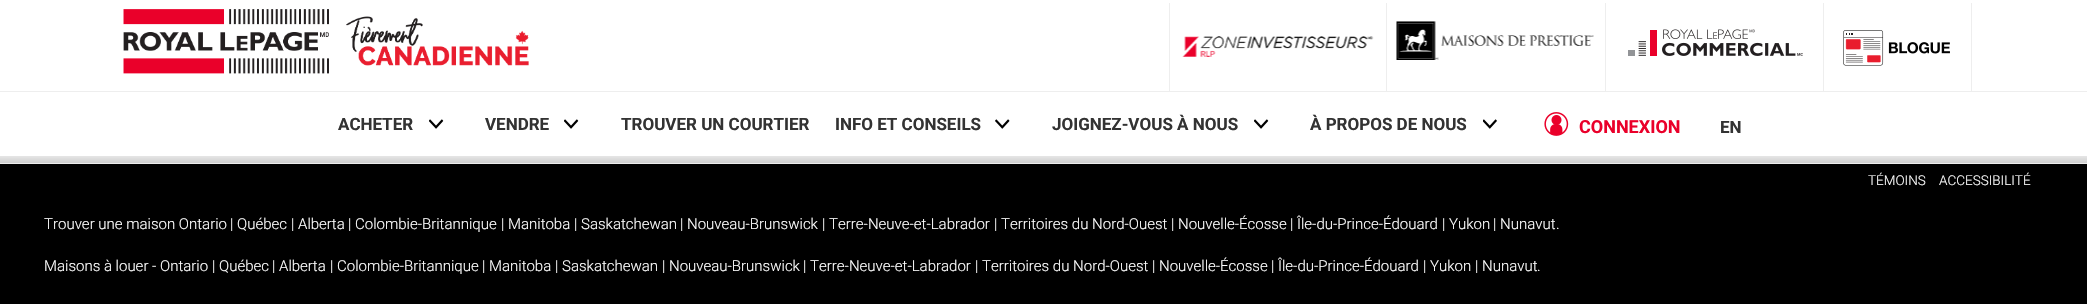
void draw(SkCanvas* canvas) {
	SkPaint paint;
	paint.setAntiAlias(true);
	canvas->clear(0xff000000);
	{
		const SkColor colors[] = {0xffffffff, 0xffffffff, 0xe6ffffff, 0xccffffff};
		const float stops[] = {0, 0.95, 0.95, 1};
		const SkPoint ends[] = {{1044, 0}, {1044, 164}};
		paint.setShader(SkGradientShader::MakeLinear(ends, colors, stops, 4, SkTileMode::kClamp));
		paint.setAlpha(255);
	}
	canvas->drawRect(SkRect::MakeXYWH(0, 0, 2087, 163), paint);
	canvas->drawImageRect(SkImages::DeferredFromEncodedData(SkData::MakeFromFileName("img1.png")), SkRect::MakeXYWH(123, 9, 406, 65), SkSamplingOptions());
	paint.setShader(nullptr);
	paint.setColor(0xffeeeeee);
	canvas->drawRect(SkRect::MakeXYWH(1169, 3, 1, 88), paint);
	canvas->drawImageRect(SkImages::DeferredFromEncodedData(SkData::MakeFromFileName("img2.png")), SkRect::MakeXYWH(1182, 36, 192, 21), SkSamplingOptions());
	canvas->drawRect(SkRect::MakeXYWH(1386, 3, 1, 88), paint);
	canvas->drawImageRect(SkImages::DeferredFromEncodedData(SkData::MakeFromFileName("img3.png")), SkRect::MakeXYWH(1396, 21, 198, 39), SkSamplingOptions());
	canvas->drawRect(SkRect::MakeXYWH(1605, 3, 1, 88), paint);
	canvas->drawImageRect(SkImages::DeferredFromEncodedData(SkData::MakeFromFileName("img4.png")), SkRect::MakeXYWH(1628, 29, 175, 27), SkSamplingOptions());
	canvas->drawRect(SkRect::MakeXYWH(1971, 3, 1, 88), paint);
	canvas->drawRect(SkRect::MakeXYWH(1823, 3, 1, 88), paint);
	canvas->drawImageRect(SkImages::DeferredFromEncodedData(SkData::MakeFromFileName("img5.png")), SkRect::MakeXYWH(1843, 30, 107, 36), SkSamplingOptions());
	canvas->drawRect(SkRect::MakeXYWH(0, 91, 2087, 1), paint);
	canvas->drawRect(SkRect::MakeXYWH(0, 163, 2087, 1), paint);
	SkFont f1(fontMgr->matchFamilyStyle("Roboto", SkFontStyle::Bold()), 17);
	f1.setSubpixel(true);
	paint.setColor(0xff333333);
	canvas->drawString("ACHETER", 338, 130, f1, paint);
	canvas->drawImageRect(SkImages::DeferredFromEncodedData(SkData::MakeFromFileName("img6.png")), SkRect::MakeXYWH(429, 119, 15, 10), SkSamplingOptions());
	canvas->drawString("VENDRE", 485, 130, f1, paint);
	canvas->drawImageRect(SkImages::DeferredFromEncodedData(SkData::MakeFromFileName("img6.png")), SkRect::MakeXYWH(564, 119, 15, 10), SkSamplingOptions());
	canvas->drawString("TROUVER UN COURTIER", 621, 130, f1, paint);
	canvas->drawString("INFO ET CONSEILS", 835, 130, f1, paint);
	canvas->drawImageRect(SkImages::DeferredFromEncodedData(SkData::MakeFromFileName("img7.png")), SkRect::MakeXYWH(995, 119, 15, 10), SkSamplingOptions());
	canvas->drawString("JOIGNEZ-VOUS À NOUS", 1052, 130, f1, paint);
	canvas->drawImageRect(SkImages::DeferredFromEncodedData(SkData::MakeFromFileName("img6.png")), SkRect::MakeXYWH(1254, 119, 15, 10), SkSamplingOptions());
	canvas->drawString("À PROPOS DE NOUS", 1310, 130, f1, paint);
	canvas->drawImageRect(SkImages::DeferredFromEncodedData(SkData::MakeFromFileName("img8.png")), SkRect::MakeXYWH(1483, 119, 14, 10), SkSamplingOptions());
	canvas->drawImageRect(SkImages::DeferredFromEncodedData(SkData::MakeFromFileName("img9.png")), SkRect::MakeXYWH(1544, 112, 25, 24), SkSamplingOptions());
	SkFont f2(fontMgr->matchFamilyStyle("Roboto", SkFontStyle::Bold()), 18);
	f2.setSubpixel(true);
	paint.setColor(0xffea002a);
	canvas->drawString("CONNEXION", 1579, 133, f2, paint);
	paint.setColor(0xff333333);
	canvas->drawString("EN", 1720, 133, f1, paint);
	SkFont f3(fontMgr->matchFamilyStyle("Roboto", SkFontStyle(300, SkFontStyle::kNormal_Width, SkFontStyle::kUpright_Slant)), 13.5);
	f3.setSubpixel(true);
	paint.setColor(0xffffffff);
	canvas->drawString("TÉMOINS", 1868, 185, f3, paint);
	canvas->drawString("ACCESSIBILITÉ", 1939, 185, f3, paint);
	SkFont f4(fontMgr->matchFamilyStyle("Roboto", SkFontStyle(300, SkFontStyle::kNormal_Width, SkFontStyle::kUpright_Slant)), 15);
	f4.setSubpixel(true);
	canvas->drawString("Trouver une maison Ontario", 44, 229, f4, paint);
	canvas->drawString("|", 230, 229, f4, paint);
	canvas->drawString("Québec", 237, 229, f4, paint);
	canvas->drawString("|", 291, 229, f4, paint);
	canvas->drawString("Alberta", 298, 229, f4, paint);
	canvas->drawString("|", 348, 229, f4, paint);
	canvas->drawString("Colombie-Britannique", 355, 229, f4, paint);
	canvas->drawString("|", 501, 229, f4, paint);
	canvas->drawString("Manitoba", 508, 229, f4, paint);
	canvas->drawString("|", 574, 229, f4, paint);
	canvas->drawString("Saskatchewan", 581, 229, f4, paint);
	canvas->drawString("|", 680, 229, f4, paint);
	canvas->drawString("Nouveau-Brunswick", 687, 229, f4, paint);
	canvas->drawString("|", 822, 229, f4, paint);
	canvas->drawString("Terre-Neuve-et-Labrador", 829, 229, f4, paint);
	canvas->drawString("|", 994, 229, f4, paint);
	canvas->drawString("Territoires du Nord-Ouest", 1001, 229, f4, paint);
	canvas->drawString("|", 1171, 229, f4, paint);
	canvas->drawString("Nouvelle-Écosse", 1178, 229, f4, paint);
	canvas->drawString("|", 1290, 229, f4, paint);
	canvas->drawString("Île-du-Prince-Édouard", 1297, 229, f4, paint);
	canvas->drawString("|", 1442, 229, f4, paint);
	canvas->drawString("Yukon", 1449, 229, f4, paint);
	canvas->drawString("|", 1493, 229, f4, paint);
	canvas->drawString("Nunavut", 1500, 229, f4, paint);
	canvas->drawString(".", 1556, 229, f4, paint);
	canvas->drawString("Maisons à louer -", 44, 271, f4, paint);
	canvas->drawString("Ontario", 160, 271, f4, paint);
	canvas->drawString("|", 212, 271, f4, paint);
	canvas->drawString("Québec", 219, 271, f4, paint);
	canvas->drawString("|", 272, 271, f4, paint);
	canvas->drawString("Alberta", 279, 271, f4, paint);
	canvas->drawString("|", 330, 271, f4, paint);
	canvas->drawString("Colombie-Britannique", 337, 271, f4, paint);
	canvas->drawString("|", 482, 271, f4, paint);
	canvas->drawString("Manitoba", 489, 271, f4, paint);
	canvas->drawString("|", 555, 271, f4, paint);
	canvas->drawString("Saskatchewan", 562, 271, f4, paint);
	canvas->drawString("|", 662, 271, f4, paint);
	canvas->drawString("Nouveau-Brunswick", 669, 271, f4, paint);
	canvas->drawString("|", 803, 271, f4, paint);
	canvas->drawString("Terre-Neuve-et-Labrador", 810, 271, f4, paint);
	canvas->drawString("|", 975, 271, f4, paint);
	canvas->drawString("Territoires du Nord-Ouest", 982, 271, f4, paint);
	canvas->drawString("|", 1152, 271, f4, paint);
	canvas->drawString("Nouvelle-Écosse", 1159, 271, f4, paint);
	canvas->drawString("|", 1271, 271, f4, paint);
	canvas->drawString("Île-du-Prince-Édouard", 1278, 271, f4, paint);
	canvas->drawString("|", 1423, 271, f4, paint);
	canvas->drawString("Yukon", 1430, 271, f4, paint);
	canvas->drawString("|", 1475, 271, f4, paint);
	canvas->drawString("Nunavut", 1482, 271, f4, paint);
	canvas->drawString(".", 1537, 271, f4, paint);
}
